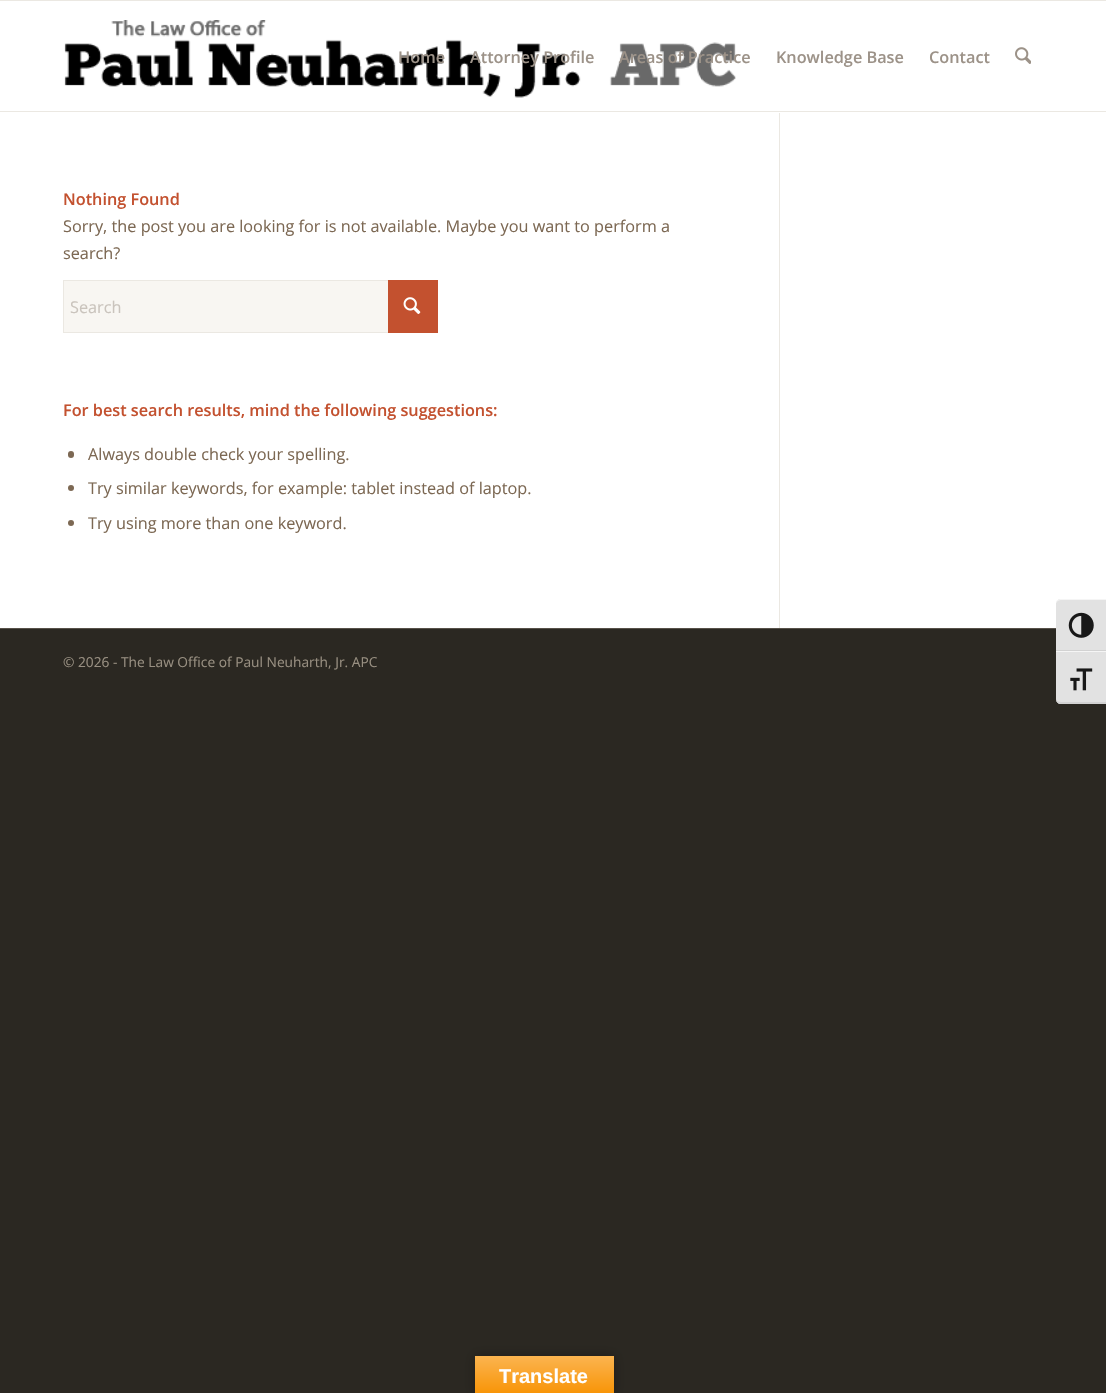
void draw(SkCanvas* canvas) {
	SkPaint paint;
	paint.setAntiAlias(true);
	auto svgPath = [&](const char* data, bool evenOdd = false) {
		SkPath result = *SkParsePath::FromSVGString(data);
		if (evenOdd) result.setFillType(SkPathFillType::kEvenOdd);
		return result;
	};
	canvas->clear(0xff2b2822);
	paint.setColor(0xffffffff);
	canvas->drawRect(SkRect::MakeXYWH(0, 113, 1106, 515), paint);
	paint.setColor(0xffebe8e2);
	canvas->drawRect(SkRect::MakeXYWH(779, 110, 1, 518), paint);
	paint.setColor(0xffffffff);
	canvas->drawRect(SkRect::MakeXYWH(0, 1, 1106, 112), paint);
	paint.setColor(0xffebe8e2);
	canvas->drawRect(SkRect::MakeXYWH(0, 0, 1106, 1), paint);
	canvas->drawRect(SkRect::MakeXYWH(0, 111, 1106, 1), paint);
	canvas->drawImageRect(SkImages::DeferredFromEncodedData(SkData::MakeFromFileName("img1.png")), SkRect::MakeXYWH(64, 20, 672, 78), SkSamplingOptions());
	SkFont f1(fontMgr->matchFamilyStyle("Open Sans", SkFontStyle(600, SkFontStyle::kNormal_Width, SkFontStyle::kUpright_Slant)), 16.25);
	f1.setSubpixel(true);
	paint.setColor(0xff9c9288);
	canvas->drawString("Home", 398, 63, f1, paint);
	canvas->drawString("Attorney Profile", 470, 63, f1, paint);
	canvas->drawString("Areas of Practice", 619, 63, f1, paint);
	canvas->drawString("Knowledge Base", 776, 63, f1, paint);
	canvas->drawString("Contact", 929, 63, f1, paint);
	canvas->drawImageRect(SkImages::DeferredFromEncodedData(SkData::MakeFromFileName("img2.png")), SkRect::MakeXYWH(1015, 47, 16, 17), SkSamplingOptions());
	paint.setColor(0xffc3512f);
	canvas->drawString("Nothing Found", 63, 205, f1, paint);
	SkFont f2(fontMgr->matchFamilyStyle("Open Sans", SkFontStyle::Normal()), 16.25);
	f2.setSubpixel(true);
	paint.setColor(0xff7c6853);
	canvas->drawString("Sorry, the post you are looking for is not available. Maybe you want to perform a", 63, 232, f2, paint);
	canvas->drawString("search?", 63, 259, f2, paint);
	paint.setColor(0xfff8f6f2);
	canvas->drawRect(SkRect::MakeXYWH(64, 281, 324, 51), paint);
	paint.setStroke(true);
	paint.setStrokeWidth(1);
	paint.setColor(0xffebe8e2);
	canvas->drawRect(SkRect::MakeXYWH(63.5, 280.5, 374, 52), paint);
	paint.setStroke(false);
	paint.setColor(0xffc3512f);
	canvas->drawRect(SkRect::MakeXYWH(388, 280, 50, 53), paint);
	paint.setColor(0xffcac4bd);
	canvas->drawString("Search", 70, 313, f2, paint);
	canvas->drawImageRect(SkImages::DeferredFromEncodedData(SkData::MakeFromFileName("img3.png")), SkRect::MakeXYWH(403, 297, 18, 17), SkSamplingOptions());
	paint.setColor(0xffc3512f);
	canvas->drawString("For best search results, mind the following suggestions:", 63, 416, f1, paint);
	paint.setColor(0xff7c6853);
	canvas->drawRoundRect(SkRect::MakeXYWH(68, 451, 6, 7), 3, 3, paint);
	canvas->drawString("Always double check your spelling.", 88, 460, f2, paint);
	canvas->drawCircle(71, 488, 3, paint);
	canvas->drawString("Try similar keywords, for example: tablet instead of laptop.", 88, 494, f2, paint);
	canvas->drawCircle(71, 523, 3, paint);
	canvas->drawString("Try using more than one keyword.", 88, 529, f2, paint);
	paint.setColor(0xff575149);
	canvas->drawRect(SkRect::MakeXYWH(0, 628, 1056, 1), paint);
	SkFont f3(fontMgr->matchFamilyStyle("Open Sans", SkFontStyle::Normal()), 13.75);
	f3.setSubpixel(true);
	paint.setColor(0xff988f81);
	canvas->drawString("© 2026 - The Law Office of Paul Neuharth, Jr. APC", 63, 667, f3, paint);
	paint.setColor(0xffe2e2e2);
	canvas->drawPath(svgPath("M1061 599H1106V651H1056V604C1056 601 1058 599 1061 599Z"), paint);
	paint.setColor(0xfff5f5f5);
	canvas->drawPath(svgPath("M1061 599H1106V600H1061C1059 600 1057 601 1056 603C1056 600 1059 599 1061 599Z"), paint);
	paint.setColor(0xffd2d2d2);
	canvas->drawRect(SkRect::MakeXYWH(1056, 650, 50, 1), paint);
	canvas->drawImageRect(SkImages::DeferredFromEncodedData(SkData::MakeFromFileName("img4.png")), SkRect::MakeXYWH(1068, 612, 26, 26), SkSamplingOptions());
	paint.setColor(0xffe2e2e2);
	canvas->drawPath(svgPath("M1056 651H1106V704H1061C1058 704 1056 702 1056 699Z"), paint);
	paint.setColor(0xfff5f5f5);
	canvas->drawRect(SkRect::MakeXYWH(1056, 651, 50, 1), paint);
	paint.setColor(0xffd2d2d2);
	canvas->drawPath(svgPath("M1106 704V702H1061C1059 702 1057 701 1056 700V701C1057 702 1058 703 1059 704Z"), paint);
	canvas->drawImageRect(SkImages::DeferredFromEncodedData(SkData::MakeFromFileName("img5.png")), SkRect::MakeXYWH(1070, 668, 23, 23), SkSamplingOptions());
	paint.setColor(0x4d000000);
	paint.setMaskFilter(SkMaskFilter::MakeBlur(kNormal_SkBlurStyle, 5.5));
	canvas->drawRect(SkRect::MakeXYWH(475, 1356, 139, 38), paint);
	paint.setMaskFilter(nullptr);
	{
		const SkColor colors[] = {0xfffbb450, 0xfff89406};
		const float stops[] = {0, 1};
		const SkPoint ends[] = {{544, 1356}, {544, 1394}};
		paint.setShader(SkGradientShader::MakeLinear(ends, colors, stops, 2, SkTileMode::kClamp));
		paint.setAlpha(255);
	}
	canvas->drawRect(SkRect::MakeXYWH(475, 1356, 139, 37), paint);
	SkFont f4(fontMgr->matchFamilyStyle("Liberation Sans", SkFontStyle::Bold()), 20);
	f4.setSubpixel(true);
	paint.setShader(nullptr);
	paint.setColor(0xffffffff);
	canvas->drawString("Translate", 499, 1383, f4, paint);
}
